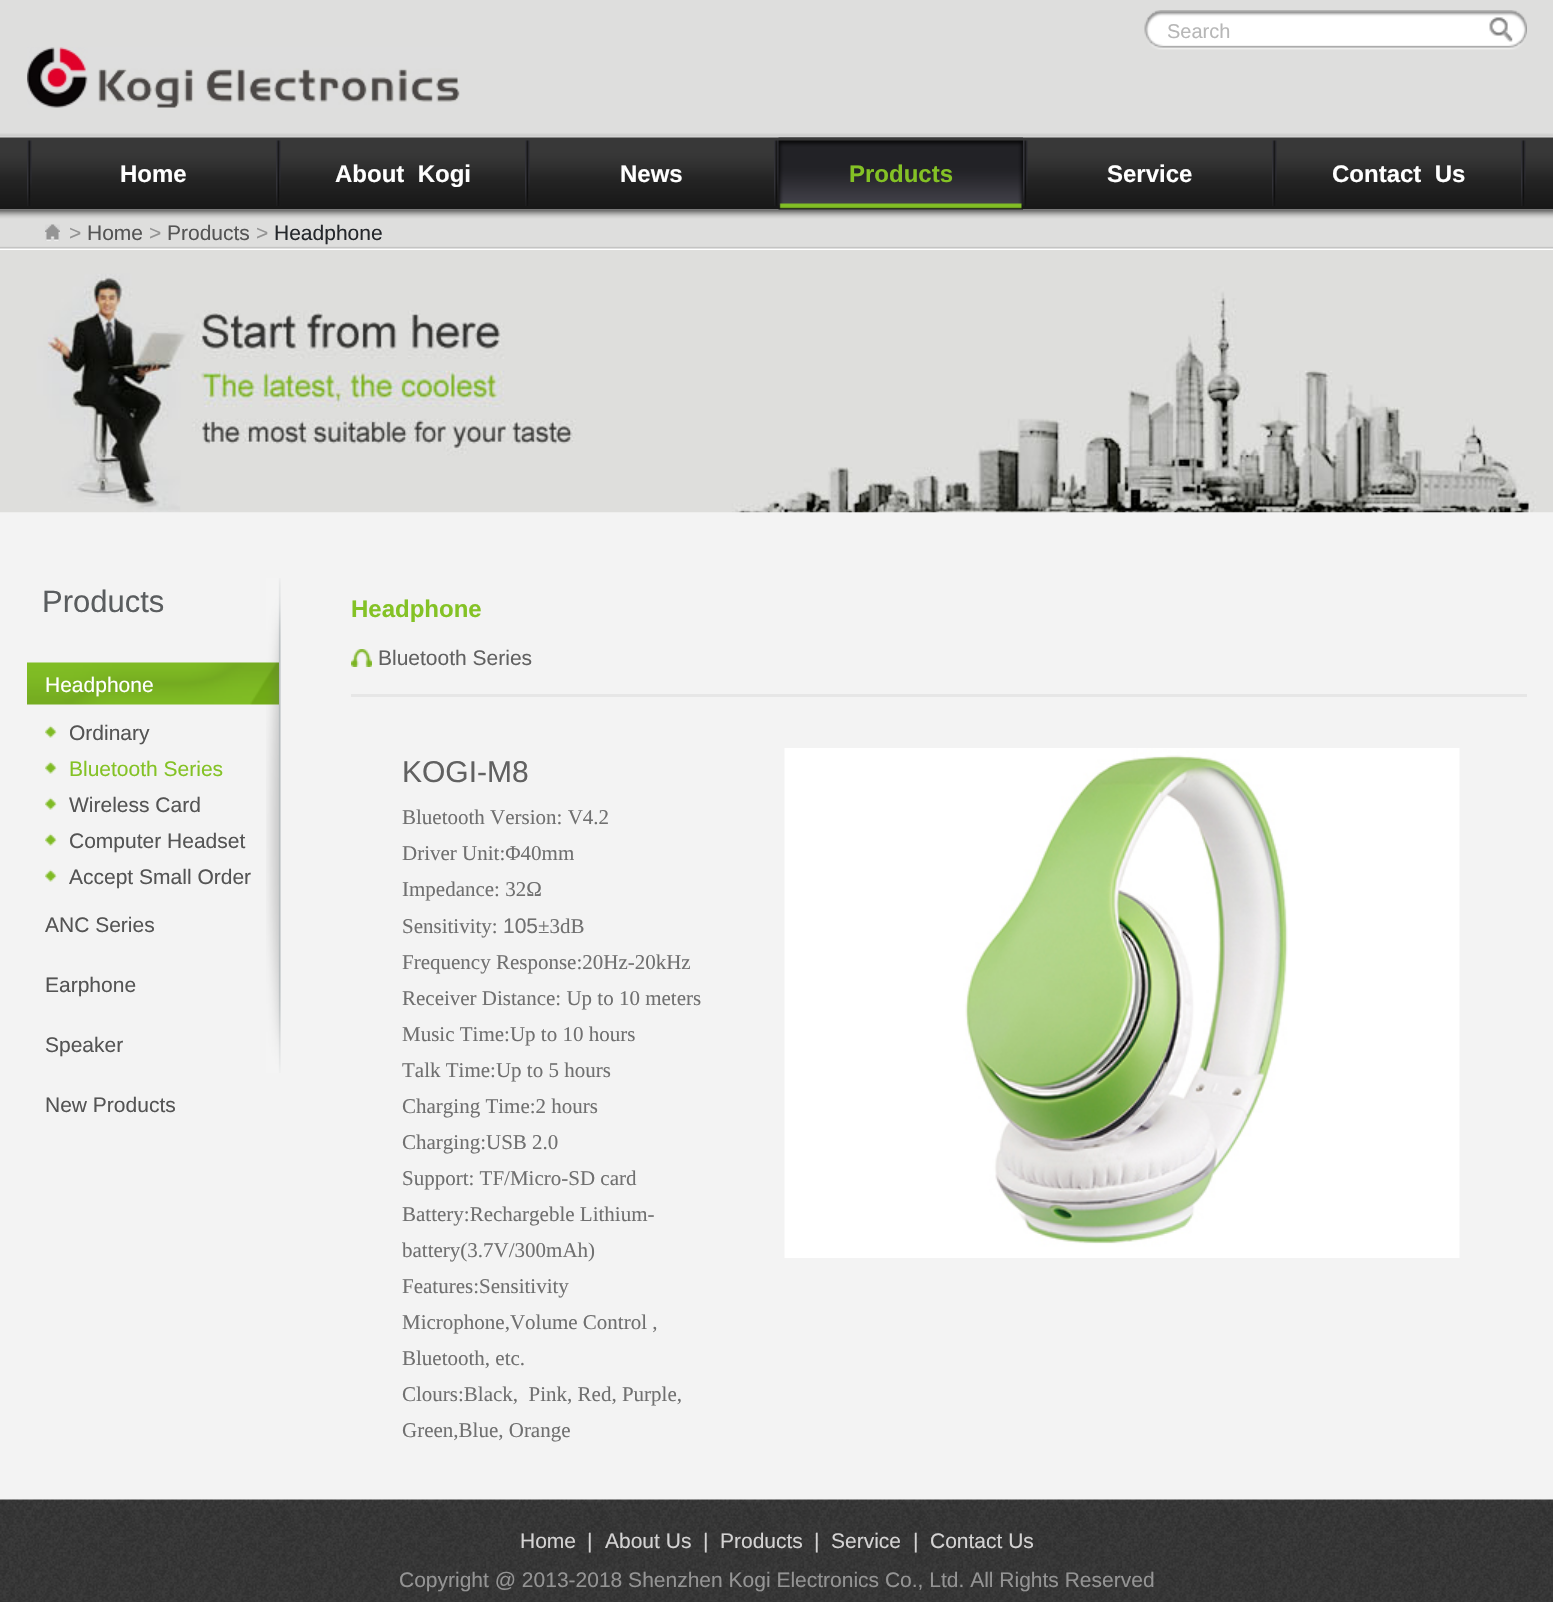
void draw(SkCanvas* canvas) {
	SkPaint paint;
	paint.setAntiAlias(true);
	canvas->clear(0xfff3f3f3);
	paint.setColor(0xffdededd);
	canvas->drawRect(SkRect::MakeXYWH(0, 0, 1553, 138), paint);
	canvas->drawImageRect(SkImages::DeferredFromEncodedData(SkData::MakeFromFileName("img1.png")), SkRect::MakeXYWH(0, 133, 1553, 5), SkSamplingOptions());
	canvas->drawImageRect(SkImages::DeferredFromEncodedData(SkData::MakeFromFileName("img2.png")), SkRect::MakeXYWH(1144, 10, 338, 40), SkSamplingOptions());
	SkFont f1(fontMgr->matchFamilyStyle("Liberation Sans", SkFontStyle::Normal()), 20);
	f1.setSubpixel(true);
	paint.setColor(0xffb7b7b7);
	canvas->drawString("Search", 1167, 38, f1, paint);
	canvas->drawImageRect(SkImages::DeferredFromEncodedData(SkData::MakeFromFileName("img3.png")), SkRect::MakeXYWH(1482, 10, 45, 40), SkSamplingOptions());
	canvas->drawImageRect(SkImages::DeferredFromEncodedData(SkData::MakeFromFileName("img4.png")), SkRect::MakeXYWH(27, 47, 433, 61), SkSamplingOptions());
	canvas->drawImageRect(SkImages::DeferredFromEncodedData(SkData::MakeFromFileName("img5.png")), SkRect::MakeXYWH(0, 137, 1553, 73), SkSamplingOptions());
	canvas->drawImageRect(SkImages::DeferredFromEncodedData(SkData::MakeFromFileName("img6.png")), SkRect::MakeXYWH(27, 140, 5, 66), SkSamplingOptions());
	SkFont f2(fontMgr->matchFamilyStyle("Liberation Sans", SkFontStyle::Bold()), 24);
	f2.setSubpixel(true);
	paint.setColor(0xffffffff);
	canvas->drawString("Home", 120, 182, f2, paint);
	canvas->drawImageRect(SkImages::DeferredFromEncodedData(SkData::MakeFromFileName("img7.png")), SkRect::MakeXYWH(276, 140, 5, 66), SkSamplingOptions());
	canvas->drawString("About  Kogi", 335, 182, f2, paint);
	canvas->drawImageRect(SkImages::DeferredFromEncodedData(SkData::MakeFromFileName("img7.png")), SkRect::MakeXYWH(525, 140, 5, 66), SkSamplingOptions());
	canvas->drawString("News", 620, 182, f2, paint);
	canvas->drawImageRect(SkImages::DeferredFromEncodedData(SkData::MakeFromFileName("img6.png")), SkRect::MakeXYWH(774, 140, 5, 66), SkSamplingOptions());
	canvas->drawImageRect(SkImages::DeferredFromEncodedData(SkData::MakeFromFileName("img9.png")), SkRect::MakeXYWH(0, 209, 1553, 41), SkSamplingOptions());
	canvas->drawImageRect(SkImages::DeferredFromEncodedData(SkData::MakeFromFileName("img8.png")), SkRect::MakeXYWH(778, 137, 245, 73), SkSamplingOptions());
	paint.setColor(0xff84c225);
	canvas->drawString("Products", 849, 182, f2, paint);
	canvas->drawImageRect(SkImages::DeferredFromEncodedData(SkData::MakeFromFileName("img7.png")), SkRect::MakeXYWH(1023, 140, 5, 66), SkSamplingOptions());
	paint.setColor(0xffffffff);
	canvas->drawString("Service", 1107, 182, f2, paint);
	canvas->drawImageRect(SkImages::DeferredFromEncodedData(SkData::MakeFromFileName("img6.png")), SkRect::MakeXYWH(1272, 140, 5, 66), SkSamplingOptions());
	canvas->drawString("Contact  Us", 1332, 182, f2, paint);
	canvas->drawImageRect(SkImages::DeferredFromEncodedData(SkData::MakeFromFileName("img7.png")), SkRect::MakeXYWH(1521, 140, 5, 66), SkSamplingOptions());
	canvas->drawImageRect(SkImages::DeferredFromEncodedData(SkData::MakeFromFileName("img10.png")), SkRect::MakeXYWH(45, 224, 15, 17), SkSamplingOptions());
	SkFont f3(fontMgr->matchFamilyStyle("Liberation Sans", SkFontStyle::Normal()), 21);
	f3.setSubpixel(true);
	paint.setColor(0xff949494);
	canvas->drawString(">", 69, 240, f3, paint);
	paint.setColor(0xff545454);
	canvas->drawString("Home", 87, 240, f3, paint);
	paint.setColor(0xff949494);
	canvas->drawString(">", 149, 240, f3, paint);
	paint.setColor(0xff545454);
	canvas->drawString("Products", 167, 240, f3, paint);
	paint.setColor(0xff949494);
	canvas->drawString(">", 256, 240, f3, paint);
	paint.setColor(0xff24272b);
	canvas->drawString("Headphone", 274, 240, f3, paint);
	canvas->drawImageRect(SkImages::DeferredFromEncodedData(SkData::MakeFromFileName("img11.png")), SkRect::MakeXYWH(0, 250, 1553, 263), SkSamplingOptions());
	canvas->drawImageRect(SkImages::DeferredFromEncodedData(SkData::MakeFromFileName("img12.png")), SkRect::MakeXYWH(266, 578, 15, 495), SkSamplingOptions());
	SkFont f4(fontMgr->matchFamilyStyle("Liberation Sans", SkFontStyle::Normal()), 31);
	f4.setSubpixel(true);
	paint.setColor(0xff5a5d5f);
	canvas->drawString("Products", 42, 612, f4, paint);
	canvas->drawImageRect(SkImages::DeferredFromEncodedData(SkData::MakeFromFileName("img13.png")), SkRect::MakeXYWH(27, 662, 252, 43), SkSamplingOptions());
	paint.setColor(0xffffffff);
	canvas->drawString("Headphone", 45, 692, f3, paint);
	canvas->drawImageRect(SkImages::DeferredFromEncodedData(SkData::MakeFromFileName("img14.png")), SkRect::MakeXYWH(45, 725, 12, 13), SkSamplingOptions());
	paint.setColor(0xff545454);
	canvas->drawString("Ordinary", 69, 740, f3, paint);
	canvas->drawImageRect(SkImages::DeferredFromEncodedData(SkData::MakeFromFileName("img14.png")), SkRect::MakeXYWH(45, 761, 12, 13), SkSamplingOptions());
	paint.setColor(0xff84c225);
	canvas->drawString("Bluetooth Series", 69, 776, f3, paint);
	canvas->drawImageRect(SkImages::DeferredFromEncodedData(SkData::MakeFromFileName("img14.png")), SkRect::MakeXYWH(45, 797, 12, 13), SkSamplingOptions());
	paint.setColor(0xff545454);
	canvas->drawString("Wireless Card", 69, 812, f3, paint);
	canvas->drawImageRect(SkImages::DeferredFromEncodedData(SkData::MakeFromFileName("img14.png")), SkRect::MakeXYWH(45, 833, 12, 13), SkSamplingOptions());
	canvas->drawString("Computer Headset", 69, 848, f3, paint);
	canvas->drawImageRect(SkImages::DeferredFromEncodedData(SkData::MakeFromFileName("img14.png")), SkRect::MakeXYWH(45, 869, 12, 13), SkSamplingOptions());
	canvas->drawString("Accept Small Order", 69, 884, f3, paint);
	canvas->drawString("ANC Series", 45, 932, f3, paint);
	canvas->drawString("Earphone", 45, 992, f3, paint);
	canvas->drawString("Speaker", 45, 1052, f3, paint);
	canvas->drawString("New Products", 45, 1112, f3, paint);
	paint.setColor(0xff84c225);
	canvas->drawString("Headphone", 351, 617, f2, paint);
	paint.setColor(0xffe6e6e6);
	canvas->drawRect(SkRect::MakeXYWH(351, 694, 1176, 3), paint);
	canvas->drawImageRect(SkImages::DeferredFromEncodedData(SkData::MakeFromFileName("img15.png")), SkRect::MakeXYWH(351, 649, 21, 18), SkSamplingOptions());
	paint.setColor(0xff616161);
	canvas->drawString("Bluetooth Series", 378, 665, f3, paint);
	SkFont f5(fontMgr->matchFamilyStyle("Liberation Sans", SkFontStyle::Normal()), 30);
	f5.setSubpixel(true);
	canvas->drawString("KOGI-M8", 402, 782, f5, paint);
	SkFont f6(fontMgr->matchFamilyStyle("Liberation Serif", SkFontStyle::Normal()), 21);
	f6.setSubpixel(true);
	paint.setColor(0xff707070);
	canvas->drawString("Bluetooth Version: V4.2", 402, 824, f6, paint);
	canvas->drawString("Driver Unit:Φ40mm", 402, 860, f6, paint);
	canvas->drawString("Impedance: 32Ω", 402, 896, f6, paint);
	canvas->drawString("Sensitivity:", 402, 933, f6, paint);
	canvas->drawString("105", 503, 933, f3, paint);
	canvas->drawString("±3dB", 538, 933, f6, paint);
	canvas->drawString("Frequency Response:20Hz-20kHz", 402, 969, f6, paint);
	canvas->drawString("Receiver Distance: Up to 10 meters", 402, 1005, f6, paint);
	canvas->drawString("Music Time:Up to 10 hours", 402, 1041, f6, paint);
	canvas->drawString("Talk Time:Up to 5 hours", 402, 1077, f6, paint);
	canvas->drawString("Charging Time:2 hours", 402, 1113, f6, paint);
	canvas->drawString("Charging:USB 2.0", 402, 1149, f6, paint);
	canvas->drawString("Support: TF/Micro-SD card", 402, 1185, f6, paint);
	canvas->drawString("Battery:Rechargeble Lithium-", 402, 1221, f6, paint);
	canvas->drawString("battery(3.7V/300mAh)", 402, 1257, f6, paint);
	canvas->drawString("Features:Sensitivity", 402, 1293, f6, paint);
	canvas->drawString("Microphone,Volume Control ,", 402, 1329, f6, paint);
	canvas->drawString("Bluetooth, etc.", 402, 1365, f6, paint);
	canvas->drawString("Clours:Black,  Pink, Red, Purple,", 402, 1401, f6, paint);
	canvas->drawString("Green,Blue, Orange", 402, 1437, f6, paint);
	canvas->drawImageRect(SkImages::DeferredFromEncodedData(SkData::MakeFromFileName("img16.png")), SkRect::MakeXYWH(784, 748, 676, 510), SkSamplingOptions());
	canvas->drawImageRect(SkImages::DeferredFromEncodedData(SkData::MakeFromFileName("img17.png")), SkRect::MakeXYWH(0, 1499, 1553, 103), SkSamplingOptions());
	paint.setColor(0xffd4d3d3);
	canvas->drawString("Home", 520, 1548, f3, paint);
	canvas->drawString("|", 587, 1548, f3, paint);
	canvas->drawString("About Us", 605, 1548, f3, paint);
	canvas->drawString("|", 703, 1548, f3, paint);
	canvas->drawString("Products", 720, 1548, f3, paint);
	canvas->drawString("|", 814, 1548, f3, paint);
	canvas->drawString("Service", 831, 1548, f3, paint);
	canvas->drawString("|", 913, 1548, f3, paint);
	canvas->drawString("Contact Us", 930, 1548, f3, paint);
	paint.setColor(0xff949494);
	canvas->drawString("Copyright @ 2013-2018 Shenzhen Kogi Electronics Co., Ltd. All Rights Reserved", 399, 1587, f3, paint);
}
